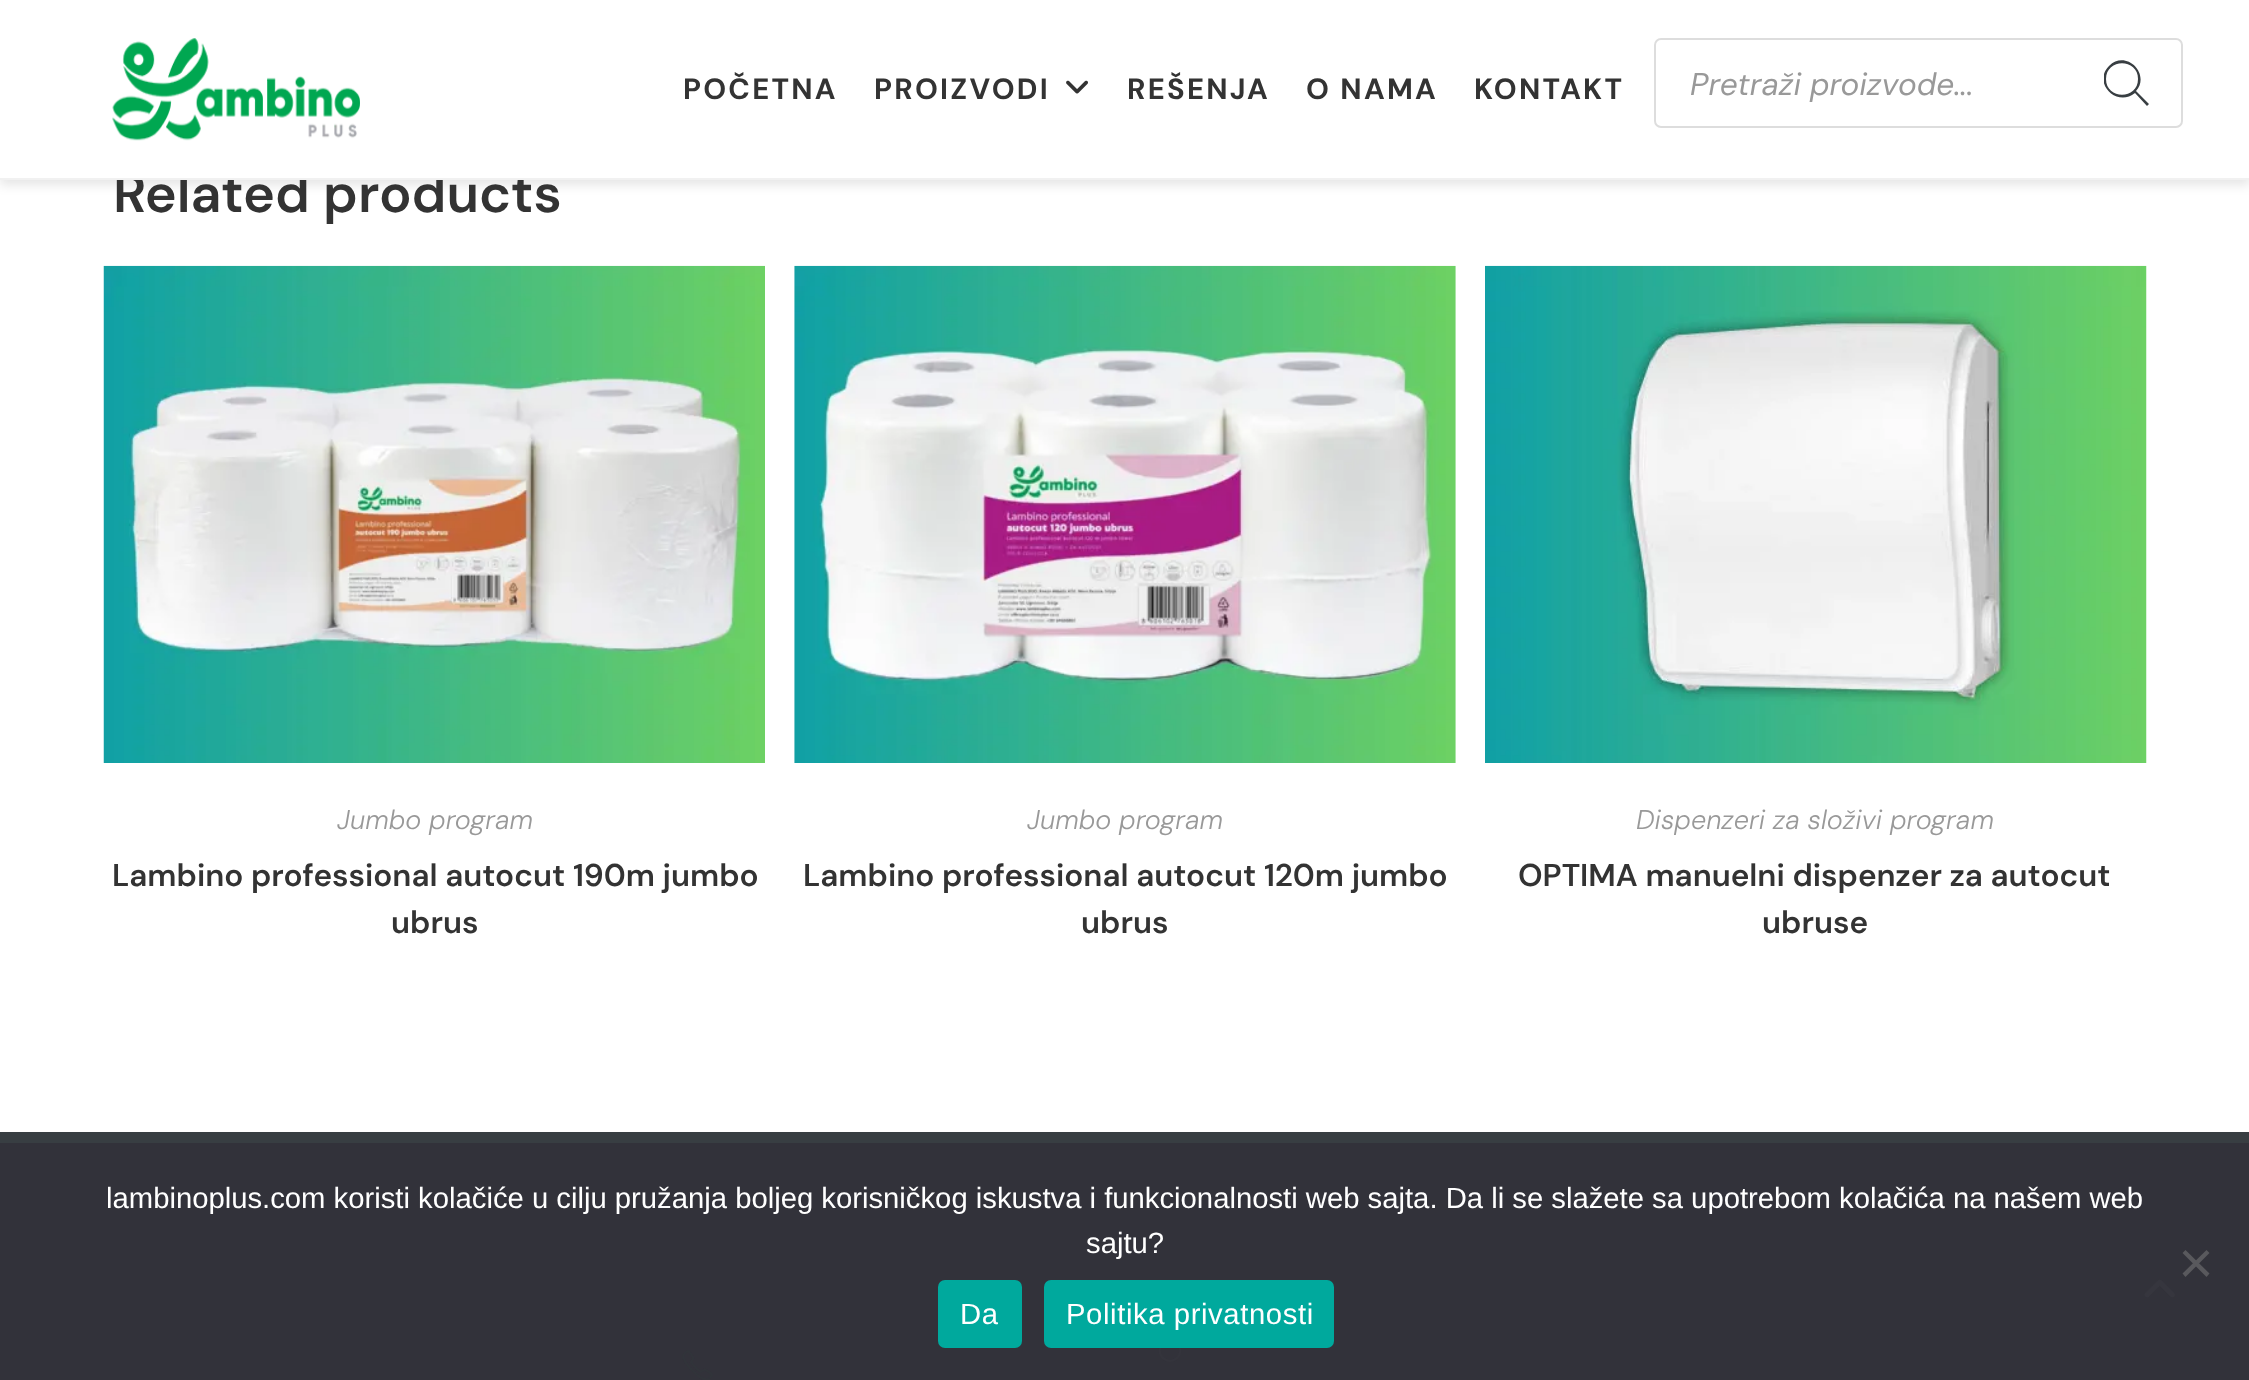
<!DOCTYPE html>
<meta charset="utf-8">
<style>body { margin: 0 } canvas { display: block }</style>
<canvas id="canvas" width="2249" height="1380"></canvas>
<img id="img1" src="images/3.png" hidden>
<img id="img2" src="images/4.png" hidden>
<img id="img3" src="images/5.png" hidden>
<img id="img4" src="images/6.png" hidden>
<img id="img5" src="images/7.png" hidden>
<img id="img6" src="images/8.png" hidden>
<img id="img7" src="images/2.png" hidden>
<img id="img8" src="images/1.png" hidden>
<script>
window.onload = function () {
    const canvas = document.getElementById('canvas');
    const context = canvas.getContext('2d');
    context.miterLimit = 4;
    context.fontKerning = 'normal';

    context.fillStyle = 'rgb(255, 255, 255)';
    context.fillRect(0, 0, 2249, 1380);
    context.fillStyle = 'rgba(0, 0, 0, 0.1)';
    context.filter = 'blur(5.5px)';
    context.beginPath();
    context.rect(0, 5, 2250, 180);
    context.fill();
    context.filter = 'none';
    context.drawImage(document.getElementById('img1'), 103, 265, 662, 498);
    context.drawImage(document.getElementById('img2'), 794, 265, 662, 498);
    context.drawImage(document.getElementById('img3'), 1485, 265, 662, 498);
    context.fillStyle = 'rgb(56, 62, 66)';
    context.fillRect(0, 1132, 2249, 11);
    context.fillStyle = 'rgb(50, 50, 58)';
    context.fillRect(0, 1143, 2249, 237);
    context.drawImage(document.getElementById('img4'), 682, 1350, 31, 30);
    context.drawImage(document.getElementById('img5'), 1158, 1348, 24, 14);
    context.fillStyle = 'rgb(89, 89, 93)';
    context.beginPath();
    context.moveTo(2206.5, 1250);
    context.lineTo(2209.5, 1253);
    context.lineTo(2185.5, 1277);
    context.lineTo(2182.5, 1273.5);
    context.closePath();
    context.fill();
    context.beginPath();
    context.moveTo(2182.5, 1253);
    context.lineTo(2185.5, 1250);
    context.lineTo(2209.5, 1273.5);
    context.lineTo(2206.5, 1277);
    context.closePath();
    context.fill();
    context.fillStyle = 'rgb(0, 169, 157)';
    context.beginPath();
    context.roundRect(938, 1280, 84, 68, 7);
    context.fill();
    context.beginPath();
    context.roundRect(1044, 1280, 290, 68, 7);
    context.fill();
    context.drawImage(document.getElementById('img6'), 2144, 1279, 31, 19);
    context.font = '600 54px DM Sans';
    context.fillStyle = 'rgb(51, 51, 51)';
    context.fillText('Related products', 113, 212);
    context.fillStyle = 'rgb(255, 255, 255)';
    context.fillRect(0, 0, 2249, 178);
    context.beginPath();
    context.roundRect(1655, 39, 527, 88, 6);
    context.strokeStyle = 'rgb(221, 221, 221)';
    context.lineWidth = 2;
    context.stroke();
    context.save();
    context.beginPath();
    context.rect(2104, 54, 45, 59);
    context.clip();
    context.fillStyle = 'rgb(56, 62, 66)';
    context.beginPath();
    context.moveTo(2149, 104);
    context.lineTo(2136, 91);
    context.bezierCurveTo(2151, 74, 2126, 49, 2109, 66);
    context.bezierCurveTo(2092, 83, 2117, 108, 2135, 93);
    context.lineTo(2147, 106);
    context.closePath();
    context.moveTo(2106, 79);
    context.bezierCurveTo(2106, 58, 2138, 58, 2138, 79);
    context.bezierCurveTo(2138, 100, 2106, 100, 2106, 79);
    context.closePath();
    context.fill();
    context.restore();
    context.font = 'italic 31.5px DM Sans';
    context.fillStyle = 'rgb(153, 153, 153)';
    context.fillText('Pretraži proizvode...', 1690, 95);
    context.letterSpacing = '2.25px';
    context.font = 'bold 29.25px DM Sans';
    context.fillStyle = 'rgb(51, 51, 51)';
    context.fillText('KONTAKT', 1474, 99);
    context.fillText('O NAMA', 1306, 99);
    context.fillText('REŠENJA', 1127, 99);
    context.drawImage(document.getElementById('img7'), 1066, 80, 22, 14);
    context.fillText('PROIZVODI', 874, 99);
    context.fillText('POČETNA', 683, 99);
    context.drawImage(document.getElementById('img8'), 112, 38, 248, 103);
    context.fillStyle = 'rgb(241, 241, 241)';
    context.fillRect(0, 178, 2249, 2);
    context.letterSpacing = '0px';
    context.font = 'italic 300 27px DM Sans';
    context.fillStyle = 'rgb(153, 153, 153)';
    context.fillText('Jumbo program', 337, 829);
    context.font = '600 31.5px DM Sans';
    context.fillStyle = 'rgb(51, 51, 51)';
    context.fillText('Lambino professional autocut 190m jumbo', 112, 886);
    context.fillText('ubrus', 391, 933);
    context.font = 'italic 300 27px DM Sans';
    context.fillStyle = 'rgb(153, 153, 153)';
    context.fillText('Jumbo program', 1027, 829);
    context.font = '600 31.5px DM Sans';
    context.fillStyle = 'rgb(51, 51, 51)';
    context.fillText('Lambino professional autocut 120m jumbo', 803, 886);
    context.fillText('ubrus', 1081, 933);
    context.font = 'italic 300 27px DM Sans';
    context.fillStyle = 'rgb(153, 153, 153)';
    context.fillText('Dispenzeri za složivi program', 1636, 829);
    context.font = '600 31.5px DM Sans';
    context.fillStyle = 'rgb(51, 51, 51)';
    context.fillText('OPTIMA manuelni dispenzer za autocut', 1518, 886);
    context.fillText('ubruse', 1762, 933);
    context.font = '29.25px Liberation Sans';
    context.fillStyle = 'rgb(255, 255, 255)';
    context.fillText('lambinoplus.com koristi kolačiće u cilju pružanja boljeg korisničkog iskustva i funkcionalnosti web sajta. Da li se slažete sa upotrebom kolačića na našem web', 106, 1208);
    context.fillText('sajtu?', 1086, 1253);
    context.letterSpacing = '0.6px';
    context.fillText('Da', 960, 1324);
    context.fillText('Politika privatnosti', 1066, 1324);
};
</script>
